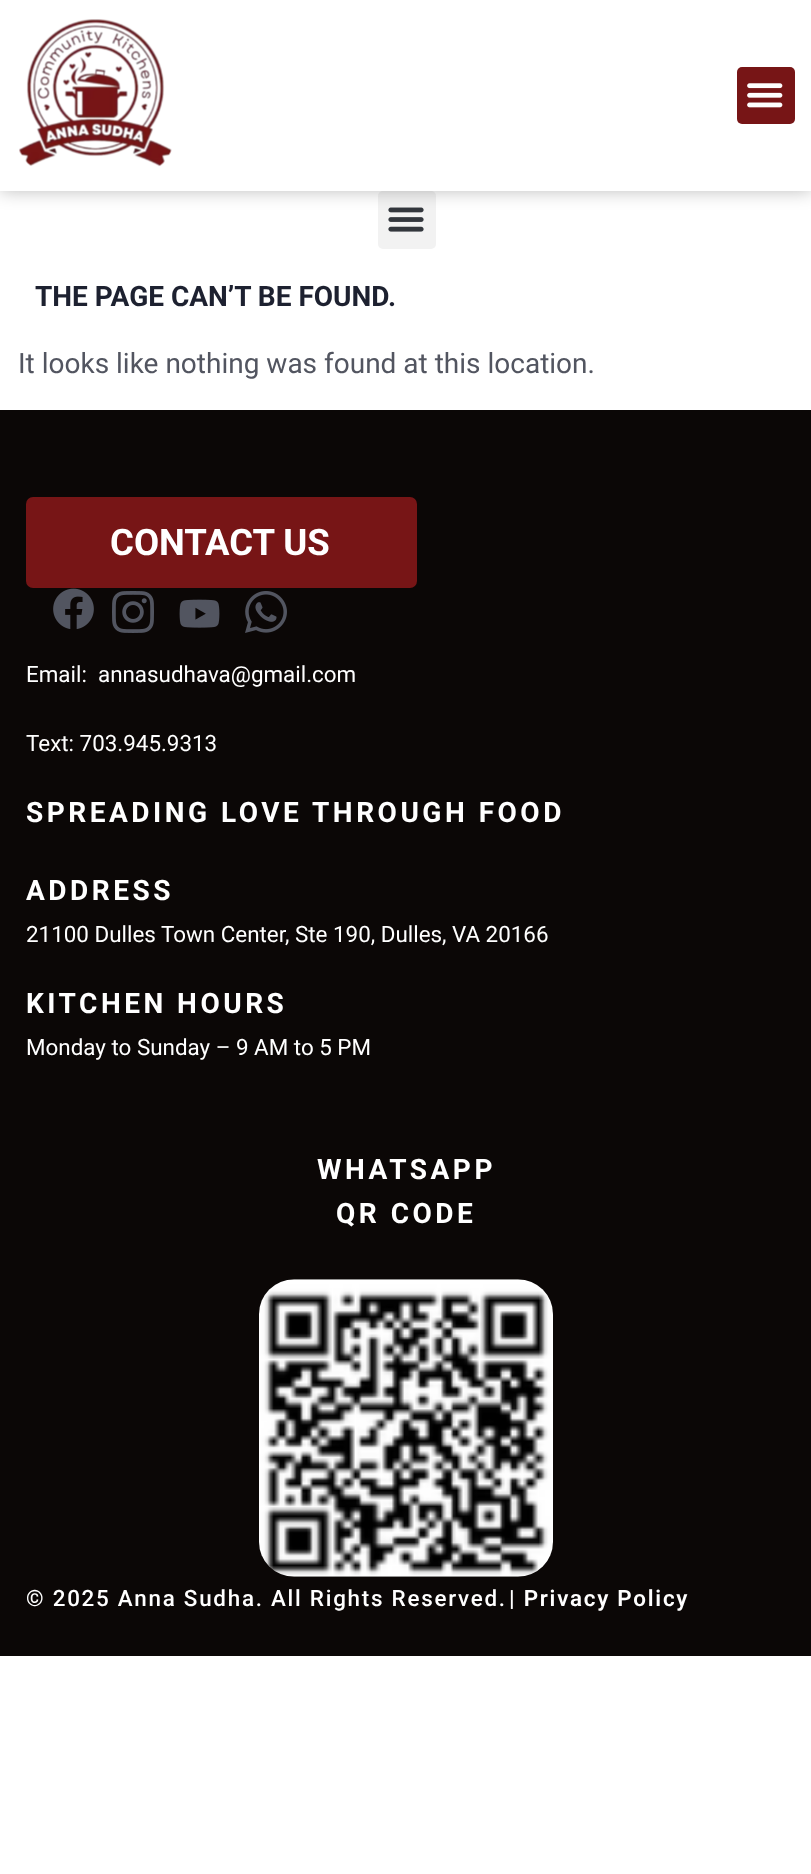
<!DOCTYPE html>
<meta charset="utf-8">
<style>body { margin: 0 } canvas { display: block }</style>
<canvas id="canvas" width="811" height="1874"></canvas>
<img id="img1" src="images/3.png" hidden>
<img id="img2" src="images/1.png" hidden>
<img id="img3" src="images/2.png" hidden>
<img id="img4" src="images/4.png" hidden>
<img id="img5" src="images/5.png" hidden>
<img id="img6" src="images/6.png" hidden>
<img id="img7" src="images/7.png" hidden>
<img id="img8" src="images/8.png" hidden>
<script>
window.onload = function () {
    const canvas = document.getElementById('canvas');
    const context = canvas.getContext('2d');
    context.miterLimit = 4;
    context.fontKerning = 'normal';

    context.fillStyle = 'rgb(255, 255, 255)';
    context.fillRect(0, 0, 811, 1874);
    context.fillStyle = 'rgb(242, 242, 242)';
    context.beginPath();
    context.roundRect(378, 191, 58, 58, 5);
    context.fill();
    context.drawImage(document.getElementById('img1'), 388, 207, 36, 25);
    context.fillStyle = 'rgba(0, 0, 0, 0.26)';
    context.filter = 'blur(9px)';
    context.beginPath();
    context.rect(0, 0, 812, 191);
    context.fill();
    context.filter = 'none';
    context.fillStyle = 'rgb(255, 255, 255)';
    context.fillRect(0, 0, 811, 191);
    context.drawImage(document.getElementById('img2'), 19, 19, 153, 148);
    context.fillStyle = 'rgb(119, 21, 22)';
    context.beginPath();
    context.roundRect(737, 67, 58, 57, 5);
    context.fill();
    context.drawImage(document.getElementById('img3'), 747, 83, 36, 25);
    context.fillStyle = 'rgb(11, 7, 6)';
    context.fillRect(0, 410, 811, 1246);
    context.fillStyle = 'rgb(119, 21, 22)';
    context.beginPath();
    context.roundRect(26, 497, 391, 91, 7);
    context.fill();
    context.drawImage(document.getElementById('img4'), 53, 588, 41, 41);
    context.drawImage(document.getElementById('img5'), 112, 591, 42, 42);
    context.drawImage(document.getElementById('img6'), 179, 599, 41, 29);
    context.drawImage(document.getElementById('img7'), 245, 591, 42, 42);
    context.drawImage(document.getElementById('img8'), 259, 1279, 294, 298);
    context.font = 'bold 28px Roboto';
    context.fillStyle = 'rgb(29, 33, 48)';
    context.fillText('THE PAGE CAN’T BE FOUND.', 35, 306);
    context.font = '28px Roboto';
    context.fillStyle = 'rgb(82, 85, 96)';
    context.fillText('It looks like nothing was found at this location.', 18, 373);
    context.font = 'bold 36.5px Roboto';
    context.fillStyle = 'rgb(255, 255, 255)';
    context.fillText('CONTACT US', 110, 555);
    context.font = '22.4px Roboto';
    context.fillText('Email:  annasudhava@gmail.com', 26, 682);
    context.fillText('Text: 703.945.9313', 26, 751);
    context.letterSpacing = '3.5px';
    context.font = 'bold 28px Roboto';
    context.fillText('SPREADING LOVE THROUGH FOOD', 26, 822);
    context.fillText('ADDRESS', 26, 900);
    context.letterSpacing = '0px';
    context.font = '22.4px Roboto';
    context.fillText('21100 Dulles Town Center, Ste 190, Dulles, VA 20166', 26, 942);
    context.letterSpacing = '3.5px';
    context.font = 'bold 28px Roboto';
    context.fillText('KITCHEN HOURS', 26, 1013);
    context.letterSpacing = '0px';
    context.font = '22.4px Roboto';
    context.fillText('Monday to Sunday – 9 AM to 5 PM', 26, 1055);
    context.letterSpacing = '3.5px';
    context.font = 'bold 28px Roboto';
    context.fillText('WHATSAPP', 317, 1179);
    context.fillText('QR CODE', 336, 1223);
    context.letterSpacing = '1.75px';
    context.font = '500 22.4px Roboto';
    context.fillText('© 2025 Anna Sudha. All Rights Reserved.', 26, 1606);
    context.font = '600 22.4px Roboto';
    context.fillText('| Privacy Policy', 509, 1606);
};
</script>
